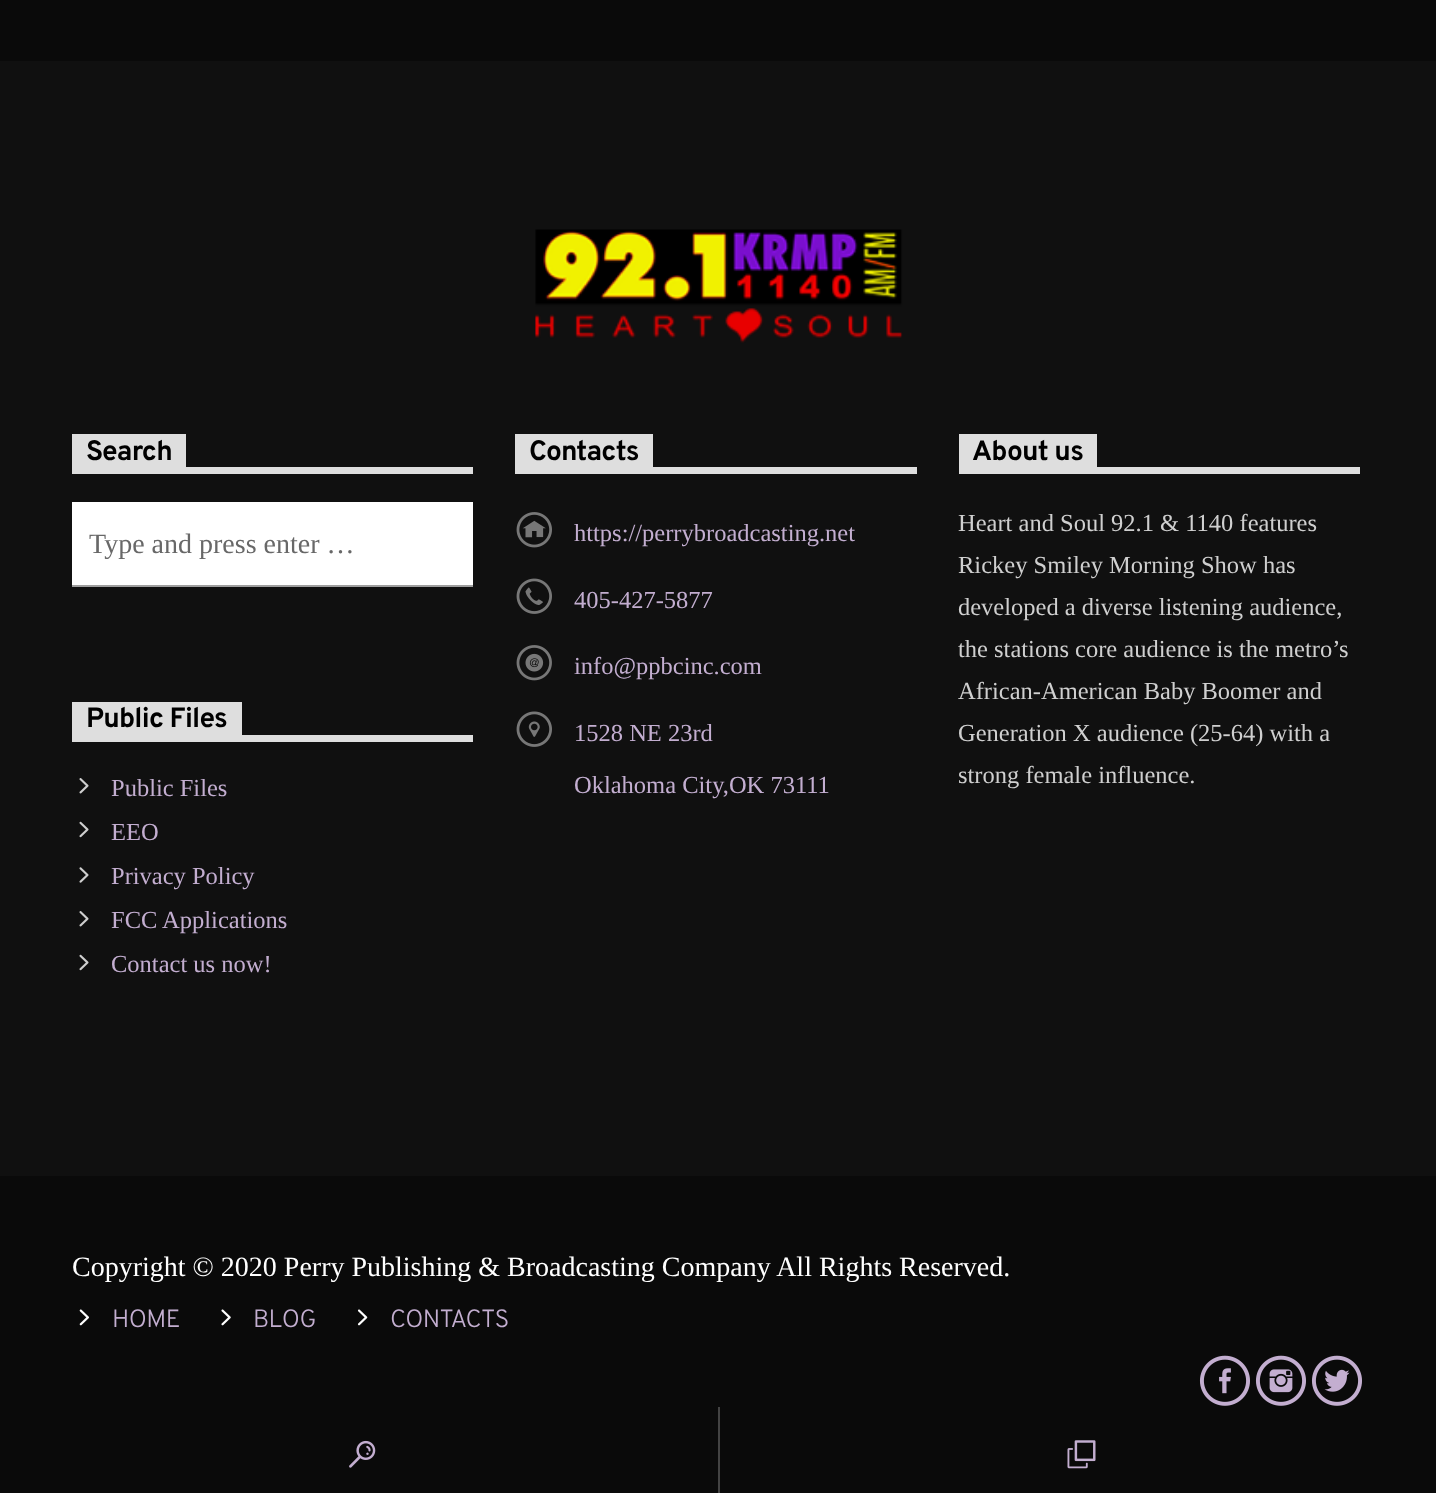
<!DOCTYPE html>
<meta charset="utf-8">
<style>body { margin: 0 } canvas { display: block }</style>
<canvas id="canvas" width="1436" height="1493"></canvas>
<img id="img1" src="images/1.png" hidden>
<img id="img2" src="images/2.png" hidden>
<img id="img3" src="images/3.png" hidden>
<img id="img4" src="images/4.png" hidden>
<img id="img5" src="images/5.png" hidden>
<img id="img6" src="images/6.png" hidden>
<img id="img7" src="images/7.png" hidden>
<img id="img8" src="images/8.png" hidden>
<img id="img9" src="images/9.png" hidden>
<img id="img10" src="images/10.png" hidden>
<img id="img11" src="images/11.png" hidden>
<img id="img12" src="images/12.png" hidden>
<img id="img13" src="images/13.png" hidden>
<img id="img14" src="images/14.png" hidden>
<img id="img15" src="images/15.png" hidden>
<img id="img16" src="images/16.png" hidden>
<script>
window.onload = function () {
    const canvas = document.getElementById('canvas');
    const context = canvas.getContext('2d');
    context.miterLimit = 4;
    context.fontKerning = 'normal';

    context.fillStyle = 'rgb(10, 10, 10)';
    context.fillRect(0, 0, 1436, 1493);
    context.fillStyle = 'rgb(16, 16, 16)';
    context.fillRect(0, 61, 1436, 1115);
    context.drawImage(document.getElementById('img1'), 535, 229, 368, 114);
    context.fillStyle = 'rgb(222, 222, 222)';
    context.fillRect(72, 467, 401, 7);
    context.fillRect(72, 434, 114, 33);
    context.fillStyle = 'rgb(255, 255, 255)';
    context.fillRect(72, 502, 401, 83);
    context.fillStyle = 'rgb(158, 158, 158)';
    context.fillRect(72, 585, 401, 2);
    context.fillStyle = 'rgb(222, 222, 222)';
    context.fillRect(515, 467, 402, 7);
    context.fillRect(515, 434, 138, 33);
    context.drawImage(document.getElementById('img2'), 516, 512, 36, 36);
    context.drawImage(document.getElementById('img3'), 516, 578, 36, 36);
    context.drawImage(document.getElementById('img4'), 516, 645, 36, 36);
    context.drawImage(document.getElementById('img5'), 516, 711, 36, 36);
    context.fillRect(959, 467, 401, 7);
    context.fillRect(959, 434, 138, 33);
    context.fillRect(72, 735, 401, 7);
    context.fillRect(72, 702, 170, 33);
    context.drawImage(document.getElementById('img6'), 79, 778, 10, 16);
    context.drawImage(document.getElementById('img7'), 79, 821, 10, 17);
    context.drawImage(document.getElementById('img8'), 79, 867, 10, 16);
    context.drawImage(document.getElementById('img6'), 79, 911, 10, 16);
    context.drawImage(document.getElementById('img7'), 79, 954, 10, 17);
    context.drawImage(document.getElementById('img9'), 79, 1309, 10, 17);
    context.drawImage(document.getElementById('img10'), 221, 1309, 10, 17);
    context.drawImage(document.getElementById('img11'), 357, 1309, 11, 17);
    context.drawImage(document.getElementById('img12'), 1199, 1355, 51, 51);
    context.drawImage(document.getElementById('img13'), 1255, 1355, 51, 51);
    context.drawImage(document.getElementById('img14'), 1311, 1355, 51, 51);
    context.fillStyle = 'rgb(67, 67, 67)';
    context.fillRect(718, 1407, 2, 86);
    context.drawImage(document.getElementById('img15'), 349, 1440, 27, 28);
    context.drawImage(document.getElementById('img16'), 1067, 1440, 29, 29);
    context.letterSpacing = '-0.75px';
    context.font = 'bold 28px Overpass';
    context.fillStyle = 'rgb(0, 0, 0)';
    context.fillText('Search', 86, 460);
    context.letterSpacing = '0px';
    context.font = '28px Liberation Serif';
    context.fillStyle = 'rgb(104, 104, 104)';
    context.fillText('Type and press enter …', 89, 553);
    context.letterSpacing = '-0.75px';
    context.font = 'bold 28px Overpass';
    context.fillStyle = 'rgb(0, 0, 0)';
    context.fillText('Contacts', 529, 460);
    context.letterSpacing = '0px';
    context.font = '24.5px Liberation Serif';
    context.fillStyle = 'rgb(195, 174, 208)';
    context.fillText('https://perrybroadcasting.net', 574, 541);
    context.fillText('405-427-5877', 574, 608);
    context.fillText('info@ppbcinc.com', 574, 674);
    context.fillText('1528 NE 23rd', 574, 741);
    context.fillText('Oklahoma City,OK 73111', 574, 793);
    context.letterSpacing = '-0.75px';
    context.font = 'bold 28px Overpass';
    context.fillStyle = 'rgb(0, 0, 0)';
    context.fillText('About us', 972, 460);
    context.letterSpacing = '0px';
    context.font = '24.5px Liberation Serif';
    context.fillStyle = 'rgb(207, 207, 207)';
    context.fillText('Heart and Soul 92.1 & 1140 features', 958, 531);
    context.fillText('Rickey Smiley Morning Show has', 958, 573);
    context.fillText('developed a diverse listening audience,', 958, 615);
    context.fillText('the stations core audience is the metro’s', 958, 657);
    context.fillText('African-American Baby Boomer and', 958, 699);
    context.fillText('Generation X audience (25-64) with a', 958, 741);
    context.fillText('strong female influence.', 958, 783);
    context.letterSpacing = '-0.75px';
    context.font = 'bold 28px Overpass';
    context.fillStyle = 'rgb(0, 0, 0)';
    context.fillText('Public Files', 86, 727);
    context.letterSpacing = '0px';
    context.font = '24.5px Liberation Serif';
    context.fillStyle = 'rgb(195, 174, 208)';
    context.fillText('Public Files', 111, 796);
    context.fillText('EEO', 111, 840);
    context.fillText('Privacy Policy', 111, 884);
    context.fillText('FCC Applications', 111, 928);
    context.fillText('Contact us now!', 111, 972);
    context.font = '28px Liberation Serif';
    context.fillStyle = 'rgb(255, 255, 255)';
    context.fillText('Copyright © 2020 Perry Publishing & Broadcasting Company All Rights Reserved.', 72, 1276);
    context.letterSpacing = '-0.5px';
    context.font = '300 25px Overpass';
    context.fillStyle = 'rgb(195, 174, 208)';
    context.fillText('HOME', 112, 1327);
    context.fillText('BLOG', 253, 1327);
    context.fillText('CONTACTS', 390, 1327);
};
</script>
